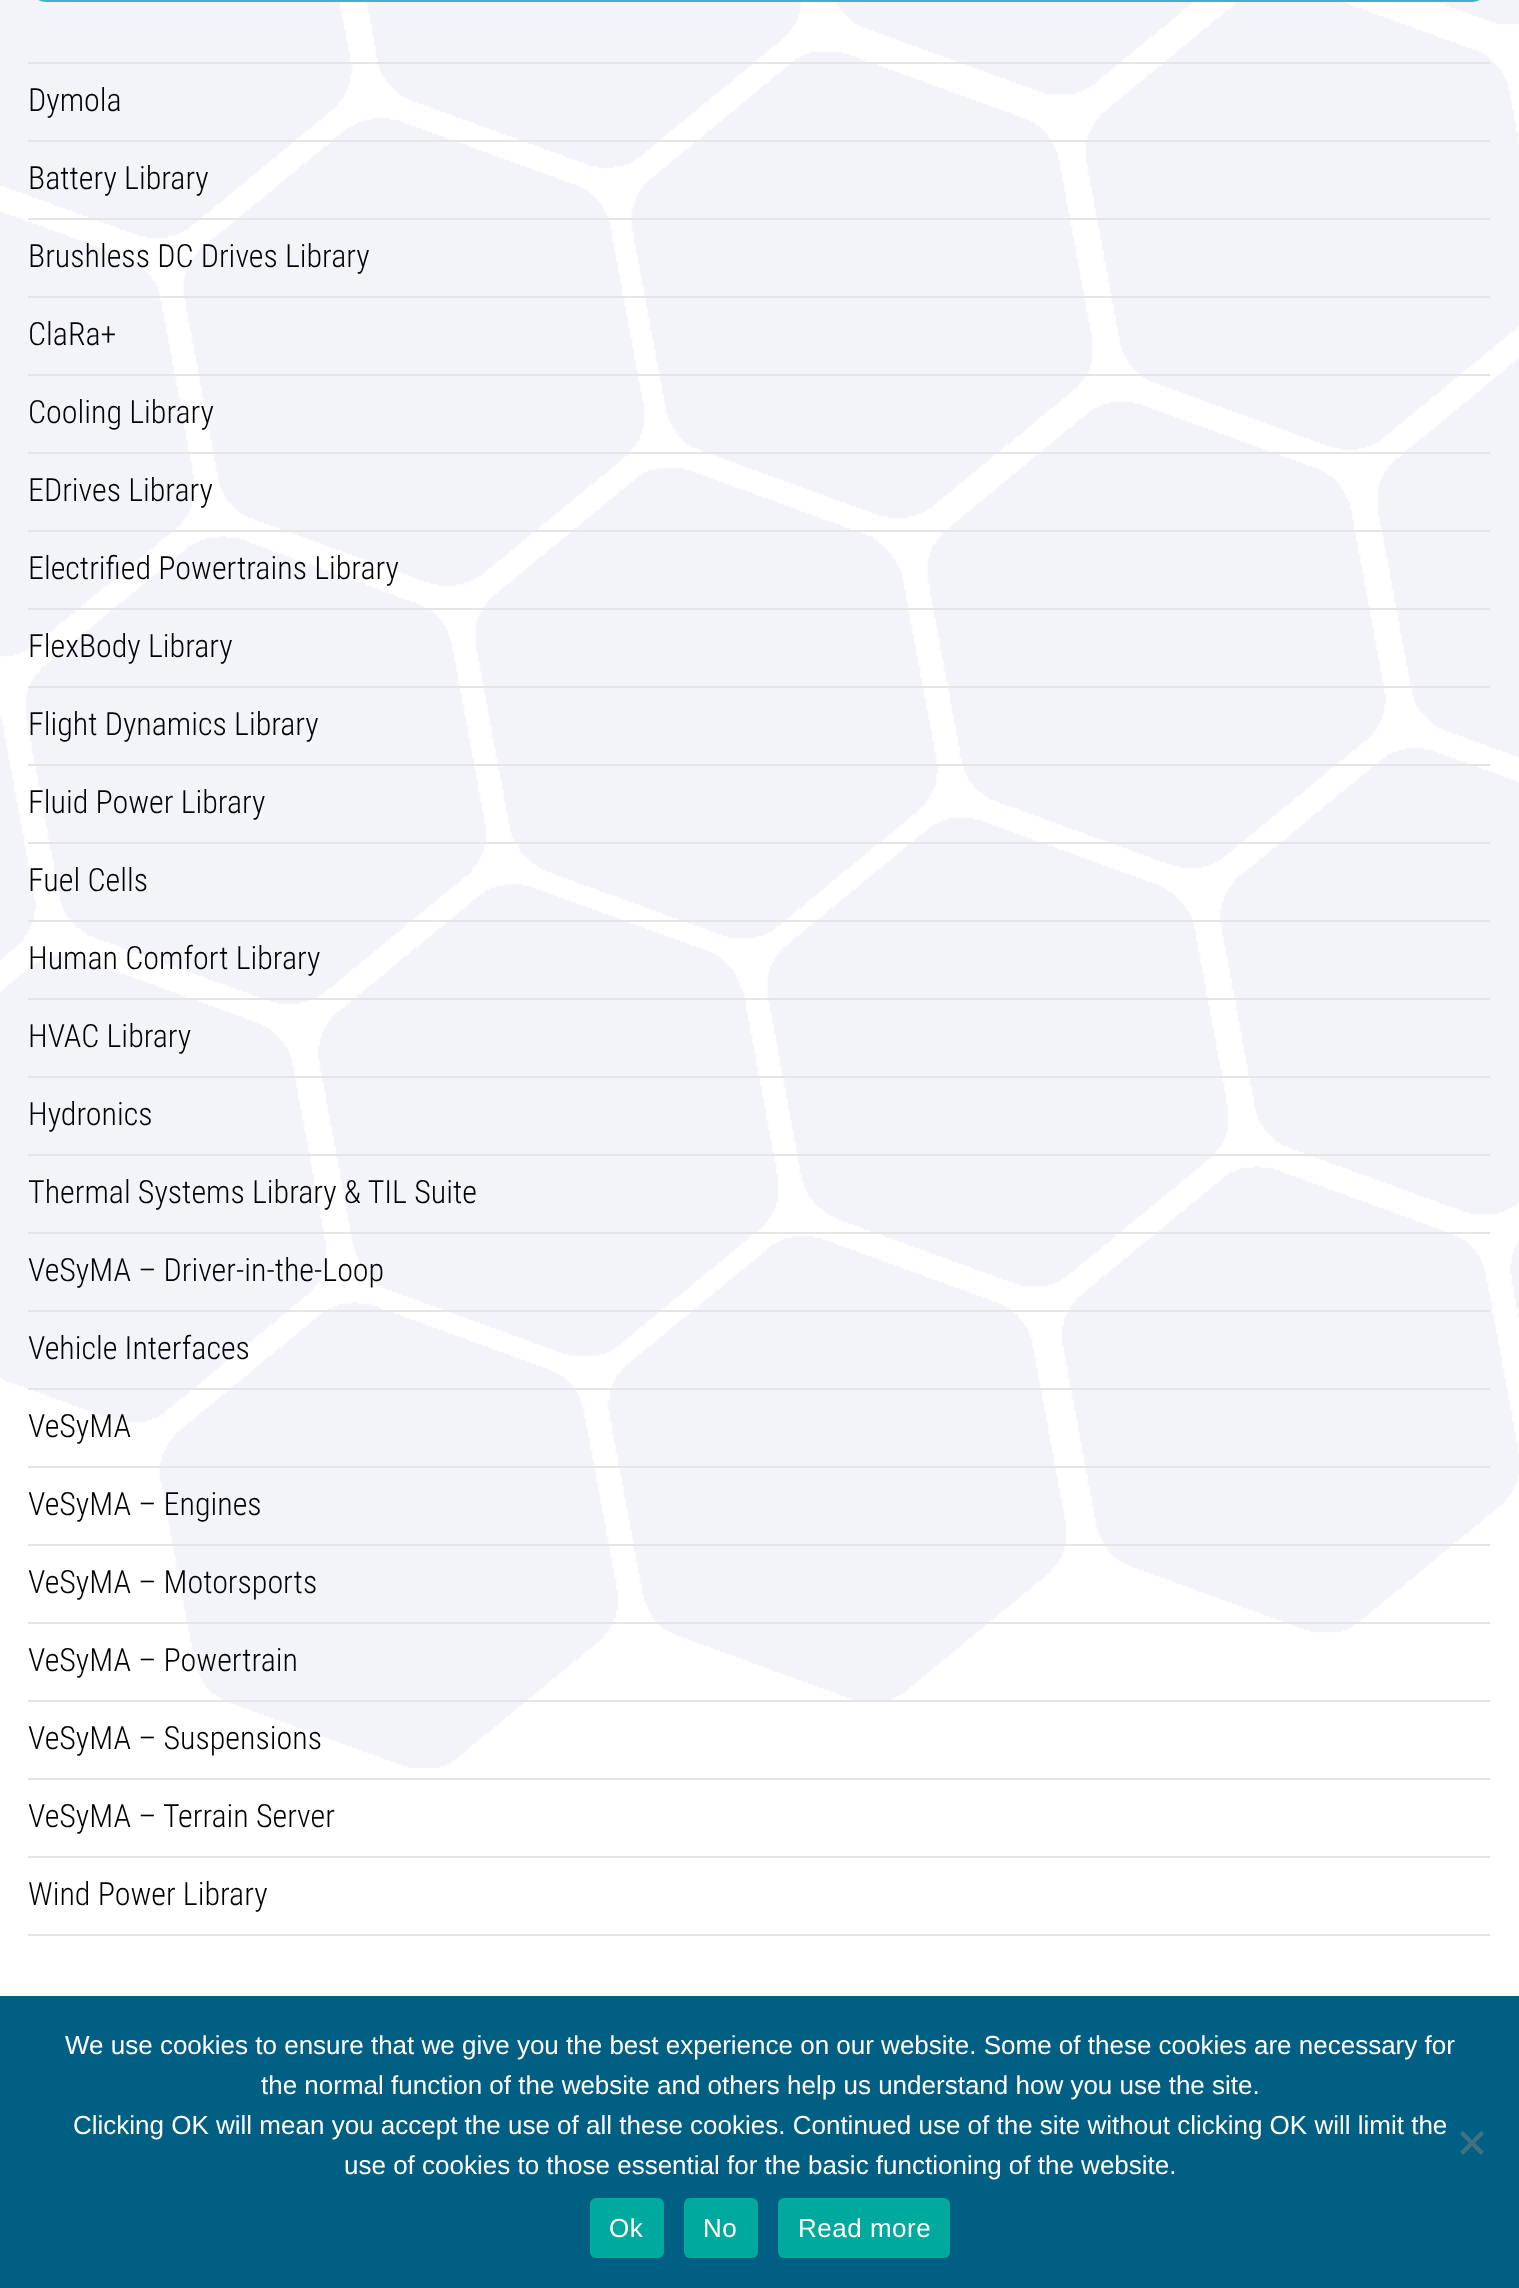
<!DOCTYPE html>
<meta charset="utf-8">
<style>body { margin: 0 } canvas { display: block }</style>
<canvas id="canvas" width="1519" height="2288"></canvas>
<img id="img1" src="images/1.png" hidden>
<script>
window.onload = function () {
    const canvas = document.getElementById('canvas');
    const context = canvas.getContext('2d');
    context.miterLimit = 4;
    context.fontKerning = 'normal';

    context.fillStyle = 'rgb(255, 255, 255)';
    context.fillRect(0, 0, 1519, 2288);
    context.drawImage(document.getElementById('img1'), 0, 0, 1519, 1768);
    context.beginPath();
    context.roundRect(29, -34, 1460, 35, 32);
    context.strokeStyle = 'rgb(62, 177, 200)';
    context.lineWidth = 2;
    context.stroke();
    context.fillStyle = 'rgb(229, 229, 229)';
    context.fillRect(28, 62, 1462, 2);
    context.fillRect(28, 140, 1462, 2);
    context.fillRect(28, 218, 1462, 2);
    context.fillRect(28, 296, 1462, 2);
    context.fillRect(28, 374, 1462, 2);
    context.fillRect(28, 452, 1462, 2);
    context.fillRect(28, 530, 1462, 2);
    context.fillRect(28, 608, 1462, 2);
    context.fillRect(28, 686, 1462, 2);
    context.fillRect(28, 764, 1462, 2);
    context.fillRect(28, 842, 1462, 2);
    context.fillRect(28, 920, 1462, 2);
    context.fillRect(28, 998, 1462, 2);
    context.fillRect(28, 1076, 1462, 2);
    context.fillRect(28, 1154, 1462, 2);
    context.fillRect(28, 1232, 1462, 2);
    context.fillRect(28, 1310, 1462, 2);
    context.fillRect(28, 1388, 1462, 2);
    context.fillRect(28, 1466, 1462, 2);
    context.fillRect(28, 1544, 1462, 2);
    context.fillRect(28, 1622, 1462, 2);
    context.fillRect(28, 1700, 1462, 2);
    context.fillRect(28, 1778, 1462, 2);
    context.fillRect(28, 1856, 1462, 2);
    context.fillRect(28, 1934, 1462, 2);
    context.fillStyle = 'rgb(0, 95, 131)';
    context.fillRect(0, 1996, 1519, 292);
    context.fillStyle = 'rgb(64, 112, 130)';
    context.beginPath();
    context.moveTo(1481, 2131);
    context.lineTo(1484, 2134);
    context.lineTo(1463, 2155);
    context.lineTo(1460, 2152);
    context.closePath();
    context.fill();
    context.beginPath();
    context.moveTo(1460, 2134);
    context.lineTo(1463, 2131);
    context.lineTo(1484, 2152);
    context.lineTo(1481, 2155);
    context.closePath();
    context.fill();
    context.fillStyle = 'rgb(0, 169, 157)';
    context.beginPath();
    context.roundRect(590, 2198, 74, 60, 6);
    context.fill();
    context.beginPath();
    context.roundRect(684, 2198, 74, 60, 6);
    context.fill();
    context.beginPath();
    context.roundRect(778, 2198, 172, 60, 6);
    context.fill();
    context.font = '300 32px Roboto Condensed';
    context.fillStyle = 'rgb(0, 0, 0)';
    context.fillText('Dymola', 28, 111);
    context.fillText('Battery Library', 28, 189);
    context.fillText('Brushless DC Drives Library', 28, 267);
    context.fillText('ClaRa+', 28, 345);
    context.fillText('Cooling Library', 28, 423);
    context.fillText('EDrives Library', 28, 501);
    context.fillText('Electrified Powertrains Library', 28, 579);
    context.fillText('FlexBody Library', 28, 657);
    context.fillText('Flight Dynamics Library', 28, 735);
    context.fillText('Fluid Power Library', 28, 813);
    context.fillText('Fuel Cells', 28, 891);
    context.fillText('Human Comfort Library', 28, 969);
    context.fillText('HVAC Library', 28, 1047);
    context.fillText('Hydronics', 28, 1125);
    context.fillText('Thermal Systems Library & TIL Suite', 28, 1203);
    context.fillText('VeSyMA – Driver-in-the-Loop', 28, 1281);
    context.fillText('Vehicle Interfaces', 28, 1359);
    context.fillText('VeSyMA', 28, 1437);
    context.fillText('VeSyMA – Engines', 28, 1515);
    context.fillText('VeSyMA – Motorsports', 28, 1593);
    context.fillText('VeSyMA – Powertrain', 28, 1671);
    context.fillText('VeSyMA – Suspensions', 28, 1749);
    context.fillText('VeSyMA – Terrain Server', 28, 1827);
    context.fillText('Wind Power Library', 28, 1905);
    context.font = '26px Liberation Sans';
    context.fillStyle = 'rgb(255, 255, 255)';
    context.fillText('We use cookies to ensure that we give you the best experience on our website. Some of these cookies are necessary for', 65, 2054);
    context.fillText('the normal function of the website and others help us understand how you use the site.', 261, 2094);
    context.fillText('Clicking OK will mean you accept the use of all these cookies. Continued use of the site without clicking OK will limit the', 73, 2134);
    context.fillText('use of cookies to those essential for the basic functioning of the website.', 344, 2174);
    context.letterSpacing = '0.5px';
    context.fillText('Ok', 609, 2237);
    context.fillText('No', 703, 2237);
    context.fillText('Read more', 798, 2237);
};
</script>
